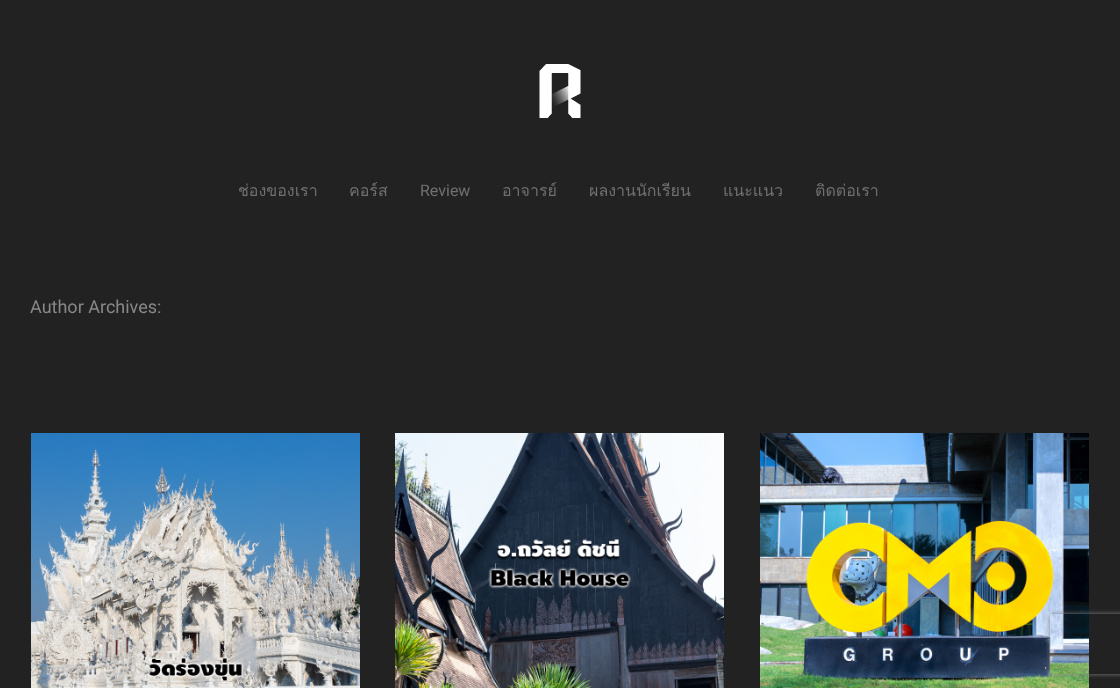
<!DOCTYPE html>
<meta charset="utf-8">
<style>body { margin: 0 } canvas { display: block }</style>
<canvas id="canvas" width="1120" height="688"></canvas>
<img id="img1" src="images/1.png" hidden>
<img id="img2" src="images/2.png" hidden>
<img id="img3" src="images/3.png" hidden>
<img id="img4" src="images/4.png" hidden>
<script>
window.onload = function () {
    const canvas = document.getElementById('canvas');
    const context = canvas.getContext('2d');
    context.miterLimit = 4;
    context.fontKerning = 'normal';

    context.fillStyle = 'rgb(34, 34, 34)';
    context.fillRect(0, 0, 1120, 688);
    context.drawImage(document.getElementById('img1'), 539, 64, 42, 54);
    context.drawImage(document.getElementById('img2'), 31, 433, 329, 255);
    context.drawImage(document.getElementById('img3'), 395, 433, 329, 255);
    context.drawImage(document.getElementById('img4'), 760, 433, 329, 255);
    context.save();
    context.beginPath();
    context.moveTo(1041, 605);
    context.lineTo(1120, 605);
    context.lineTo(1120, 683);
    context.lineTo(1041, 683);
    context.closePath();
    context.moveTo(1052, 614);
    context.lineTo(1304, 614);
    context.bezierCurveTo(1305, 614, 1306, 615, 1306, 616);
    context.lineTo(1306, 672);
    context.bezierCurveTo(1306, 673, 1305, 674, 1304, 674);
    context.lineTo(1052, 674);
    context.bezierCurveTo(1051, 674, 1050, 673, 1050, 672);
    context.lineTo(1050, 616);
    context.bezierCurveTo(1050, 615, 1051, 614, 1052, 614);
    context.closePath();
    context.clip('evenodd');
    context.fillStyle = 'rgb(128, 128, 128)';
    context.filter = 'blur(2.5px)';
    context.beginPath();
    context.roundRect(1050, 614, 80, 60, 2);
    context.fill();
    context.filter = 'none';
    context.restore();
    context.font = '16px Loma';
    context.fillStyle = 'rgb(112, 112, 112)';
    context.fillText('ช่องของเรา', 238, 196);
    context.fillText('คอร์ส', 349, 196);
    context.font = '16px Roboto';
    context.fillText('Review', 420, 196);
    context.font = '16px Loma';
    context.fillText('อาจารย์', 502, 196);
    context.fillText('ผลงานนักเรียน', 589, 196);
    context.fillText('แนะแนว', 723, 196);
    context.fillText('ติดต่อเรา', 815, 196);
    context.font = '18px Roboto';
    context.fillStyle = 'rgb(136, 136, 136)';
    context.fillText('Author Archives:', 30, 313);
};
</script>
